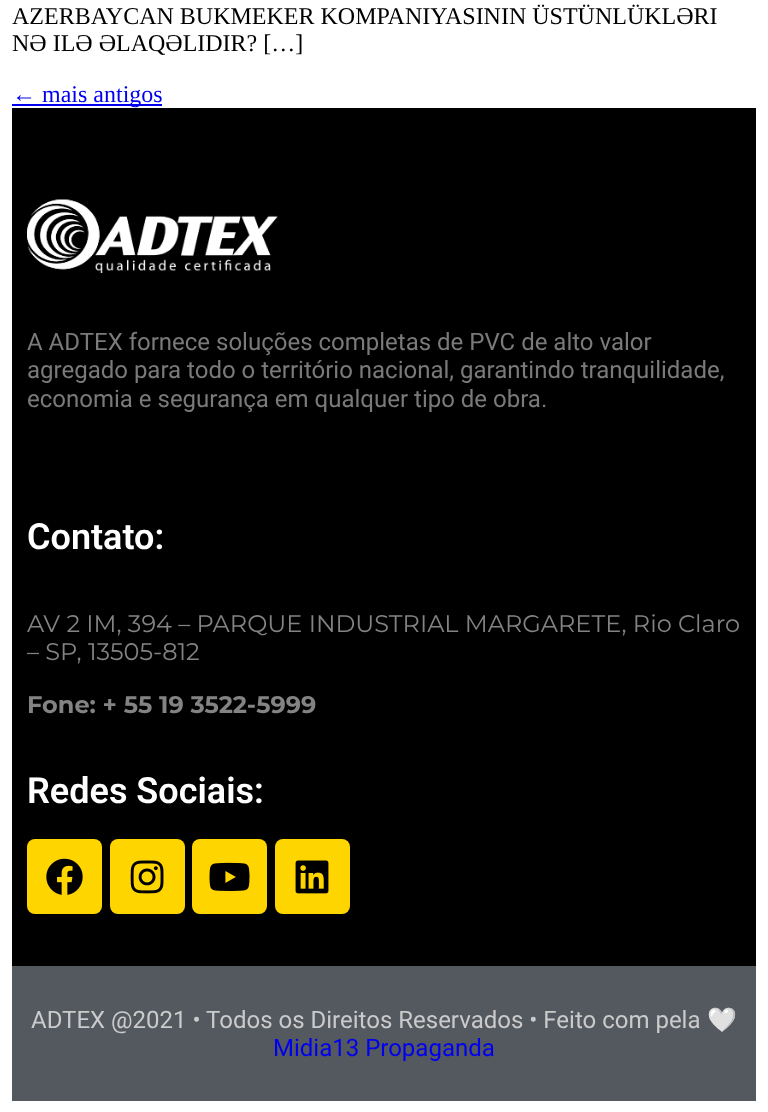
<!DOCTYPE html>
<meta charset="utf-8">
<style>body { margin: 0 } canvas { display: block }</style>
<canvas id="canvas" width="768" height="1112"></canvas>
<img id="img1" src="images/1.png" hidden>
<img id="img2" src="images/2.png" hidden>
<img id="img3" src="images/3.png" hidden>
<img id="img4" src="images/4.png" hidden>
<img id="img5" src="images/5.png" hidden>
<script>
window.onload = function () {
    const canvas = document.getElementById('canvas');
    const context = canvas.getContext('2d');
    context.miterLimit = 4;
    context.fontKerning = 'normal';

    context.fillStyle = 'rgb(255, 255, 255)';
    context.fillRect(0, 0, 768, 1112);
    context.fillStyle = 'rgb(0, 0, 238)';
    context.fillRect(12, 104, 150, 2);
    context.fillStyle = 'rgb(0, 0, 0)';
    context.fillRect(12, 108, 744, 858);
    context.drawImage(document.getElementById('img1'), 27, 199, 251, 74);
    context.fillStyle = 'rgb(255, 213, 0)';
    context.beginPath();
    context.roundRect(27, 839, 75, 75, 8);
    context.fill();
    context.drawImage(document.getElementById('img2'), 46, 858, 37, 37);
    context.beginPath();
    context.roundRect(110, 839, 75, 75, 8);
    context.fill();
    context.drawImage(document.getElementById('img3'), 130, 860, 34, 34);
    context.beginPath();
    context.roundRect(192, 839, 75, 75, 8);
    context.fill();
    context.drawImage(document.getElementById('img4'), 209, 862, 41, 29);
    context.beginPath();
    context.roundRect(275, 839, 75, 75, 8);
    context.fill();
    context.drawImage(document.getElementById('img5'), 295, 860, 34, 34);
    context.fillStyle = 'rgb(84, 89, 95)';
    context.fillRect(12, 966, 744, 135);
    context.font = '24px Liberation Serif';
    context.fillStyle = 'rgb(0, 0, 0)';
    context.fillText('AZERBAYCAN BUKMEKER KOMPANIYASININ ÜSTÜNLÜKLƏRI', 12, 24);
    context.fillText('NƏ ILƏ ƏLAQƏLIDIR? […]', 12, 51);
    context.fillStyle = 'rgb(0, 0, 238)';
    context.fillText('← mais antigos', 12, 102);
    context.font = '24px Roboto';
    context.fillStyle = 'rgb(122, 122, 122)';
    context.fillText('A ADTEX fornece soluções completas de PVC de alto valor', 27, 350);
    context.fillText('agregado para todo o território nacional, garantindo tranquilidade,', 27, 378);
    context.fillText('economia e segurança em qualquer tipo de obra.', 27, 407);
    context.font = '600 36px Roboto';
    context.fillStyle = 'rgb(255, 255, 255)';
    context.fillText('Contato:', 27, 549);
    context.font = '24px Montserrat';
    context.fillStyle = 'rgb(132, 131, 131)';
    context.fillText('AV 2 IM, 394 – PARQUE INDUSTRIAL MARGARETE, Rio Claro', 27, 632);
    context.fillText('– SP, 13505-812', 27, 660);
    context.font = 'bold 24px Montserrat';
    context.fillText('Fone: + 55 19 3522-5999', 27, 713);
    context.font = '600 36px Roboto';
    context.fillStyle = 'rgb(255, 255, 255)';
    context.fillText('Redes Sociais:', 27, 803);
    context.font = '24px Roboto';
    context.fillStyle = 'rgb(203, 203, 203)';
    context.fillText('ADTEX @2021 • Todos os Direitos Reservados • Feito com pela', 31, 1028);
    context.font = '24px Noto Color Emoji';
    context.fillText('🤍', 707, 1028);
    context.font = '24px Roboto';
    context.fillStyle = 'rgb(0, 0, 238)';
    context.fillText('Midia13 Propaganda', 273, 1056);
};
</script>
